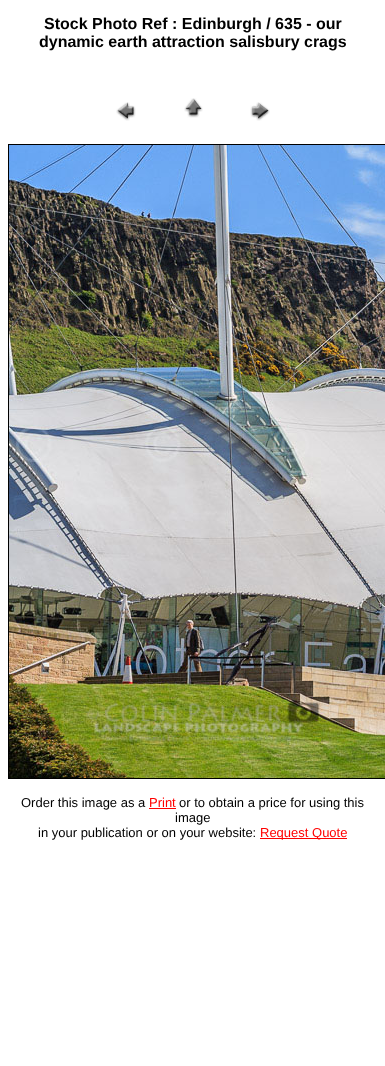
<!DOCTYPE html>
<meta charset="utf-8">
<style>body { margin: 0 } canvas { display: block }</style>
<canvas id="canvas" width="385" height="1066"></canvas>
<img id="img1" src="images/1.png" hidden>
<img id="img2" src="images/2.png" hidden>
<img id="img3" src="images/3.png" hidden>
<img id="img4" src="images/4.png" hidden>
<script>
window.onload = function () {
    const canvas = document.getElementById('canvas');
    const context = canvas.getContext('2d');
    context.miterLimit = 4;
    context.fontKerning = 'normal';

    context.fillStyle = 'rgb(255, 255, 255)';
    context.fillRect(0, 0, 385, 1066);
    context.drawImage(document.getElementById('img1'), 116, 102, 20, 19);
    context.drawImage(document.getElementById('img2'), 184, 98, 19, 20);
    context.drawImage(document.getElementById('img3'), 250, 102, 20, 19);
    context.strokeStyle = 'rgb(0, 0, 0)';
    context.strokeRect(8.5, 144.5, 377, 634);
    context.drawImage(document.getElementById('img4'), 9, 145, 376, 633);
    context.fillStyle = 'rgb(255, 0, 0)';
    context.fillRect(149, 808, 27, 1);
    context.fillRect(260, 838, 87, 1);
    context.font = 'bold 16px Liberation Sans';
    context.fillStyle = 'rgb(0, 0, 0)';
    context.fillText('Stock Photo Ref : Edinburgh / 635 - our', 44, 29);
    context.fillText('dynamic earth attraction salisbury crags', 39, 47);
    context.font = '13px Liberation Sans';
    context.fillText('Order this image as a', 21, 807);
    context.fillStyle = 'rgb(255, 0, 0)';
    context.fillText('Print', 149, 807);
    context.fillStyle = 'rgb(0, 0, 0)';
    context.fillText('or to obtain a price for using this', 179, 807);
    context.fillText('image', 175, 822);
    context.fillText('in your publication or on your website:', 38, 837);
    context.fillStyle = 'rgb(255, 0, 0)';
    context.fillText('Request Quote', 260, 837);
};
</script>
